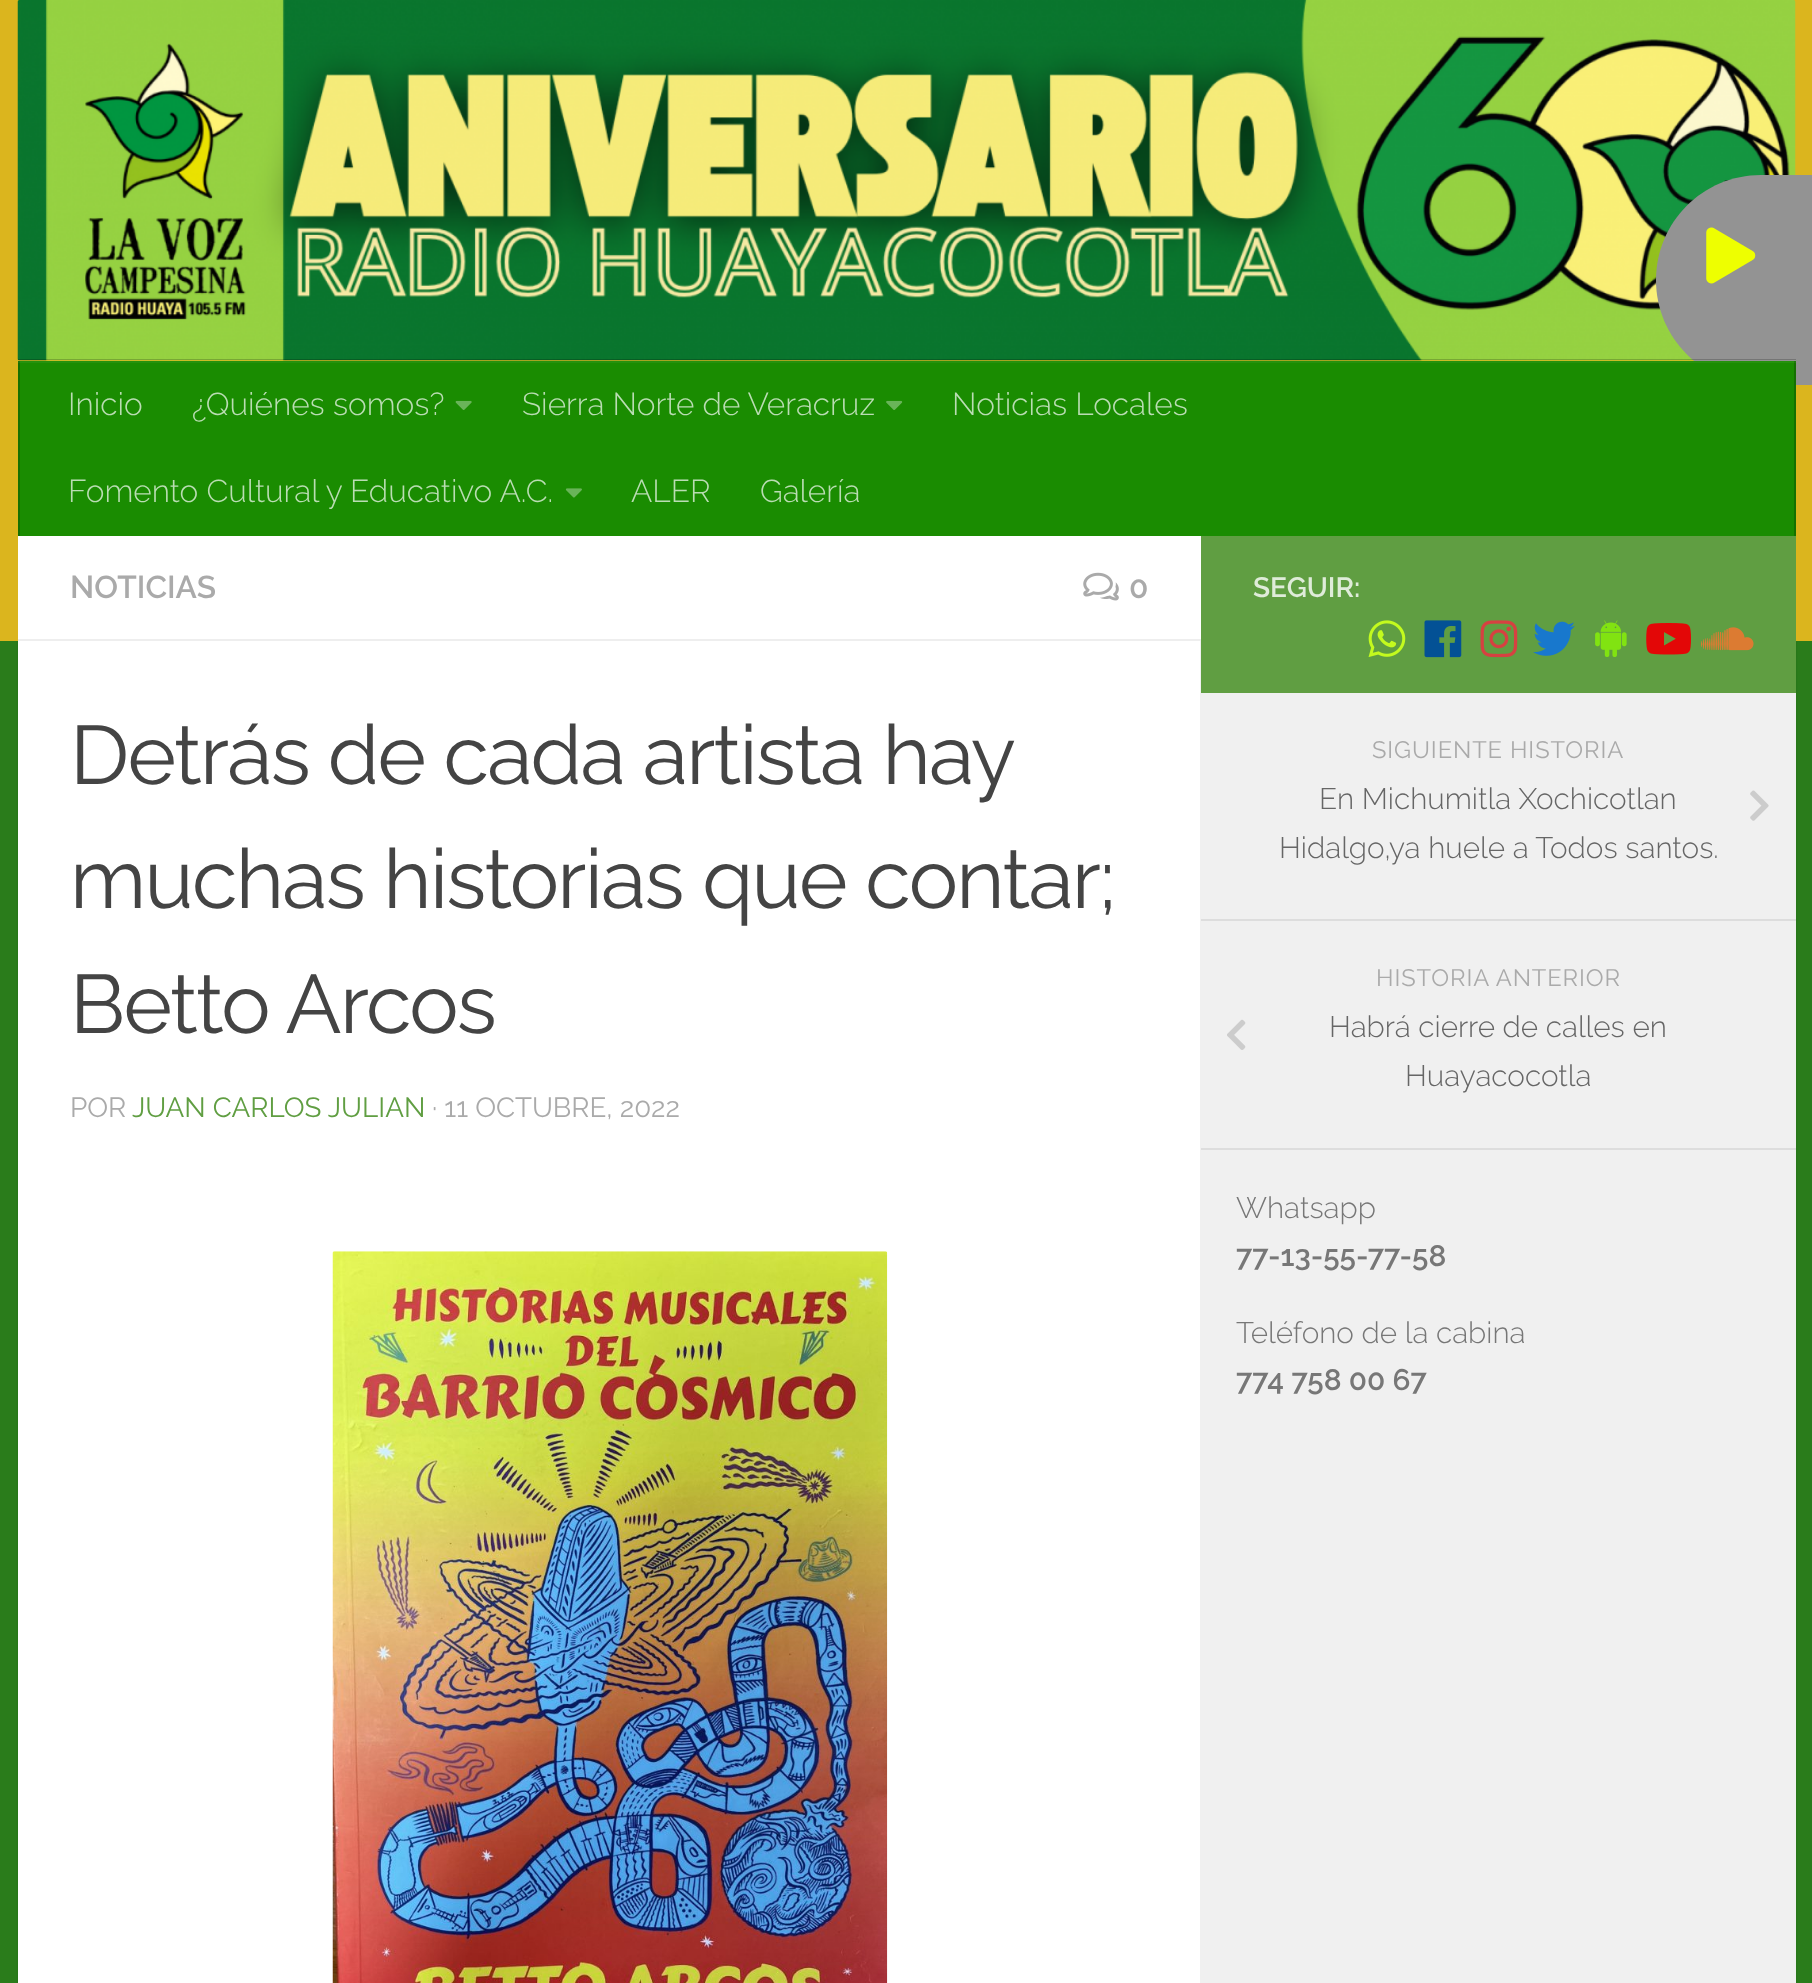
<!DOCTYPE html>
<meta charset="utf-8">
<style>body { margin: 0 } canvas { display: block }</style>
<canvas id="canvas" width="1812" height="1983"></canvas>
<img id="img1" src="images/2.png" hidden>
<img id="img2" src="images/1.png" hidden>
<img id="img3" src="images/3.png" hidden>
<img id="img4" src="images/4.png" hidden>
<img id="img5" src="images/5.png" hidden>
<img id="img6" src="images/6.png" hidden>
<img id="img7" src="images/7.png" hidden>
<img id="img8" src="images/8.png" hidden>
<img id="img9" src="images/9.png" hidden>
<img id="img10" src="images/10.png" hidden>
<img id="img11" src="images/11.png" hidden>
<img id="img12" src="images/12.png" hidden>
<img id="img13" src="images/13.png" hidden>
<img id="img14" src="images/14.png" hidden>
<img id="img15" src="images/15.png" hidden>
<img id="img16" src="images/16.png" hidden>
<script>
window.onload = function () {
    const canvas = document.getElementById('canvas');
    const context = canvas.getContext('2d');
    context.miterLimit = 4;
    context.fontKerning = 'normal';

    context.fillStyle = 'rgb(42, 124, 27)';
    context.fillRect(0, 0, 1812, 1983);
    context.fillStyle = 'rgba(0, 0, 0, 0.1)';
    context.filter = 'blur(1px)';
    context.beginPath();
    context.rect(18, 537, 1778, 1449);
    context.fill();
    context.filter = 'none';
    context.fillStyle = 'rgb(219, 181, 30)';
    context.fillRect(0, 0, 1812, 641);
    context.drawImage(document.getElementById('img1'), 17, 0, 1779, 361);
    context.fillStyle = 'rgb(147, 147, 147)';
    context.beginPath();
    context.moveTo(1761, 175);
    context.lineTo(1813, 175);
    context.lineTo(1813, 385);
    context.lineTo(1761, 385);
    context.bezierCurveTo(1703, 385, 1656, 338, 1656, 280);
    context.bezierCurveTo(1656, 222, 1703, 175, 1761, 175);
    context.closePath();
    context.fill();
    context.drawImage(document.getElementById('img2'), 1706, 227, 50, 57);
    context.fillStyle = 'rgba(0, 0, 0, 0.2)';
    context.beginPath();
    context.moveTo(18, 359);
    context.lineTo(18, 360);
    context.lineTo(1796, 360);
    context.lineTo(1796, 534);
    context.lineTo(1796, 359);
    context.closePath();
    context.fill();
    context.fillStyle = 'rgb(26, 140, 1)';
    context.fillRect(20, 361, 1774, 175);
    context.fillStyle = 'rgb(21, 112, 1)';
    context.fillRect(1794, 361, 2, 175);
    context.fillRect(18, 361, 2, 175);
    context.fillStyle = 'rgba(255, 255, 255, 0.05)';
    context.fillRect(18, 361, 1778, 2);
    context.drawImage(document.getElementById('img3'), 455, 400, 17, 10);
    context.drawImage(document.getElementById('img4'), 886, 400, 17, 10);
    context.drawImage(document.getElementById('img5'), 565, 488, 17, 10);
    context.fillStyle = 'rgb(255, 255, 255)';
    context.fillRect(18, 641, 1182, 1342);
    context.fillStyle = 'rgb(240, 240, 240)';
    context.fillRect(1200, 641, 596, 1342);
    context.fillStyle = 'rgb(255, 255, 255)';
    context.fillRect(18, 536, 1183, 103);
    context.fillStyle = 'rgb(238, 238, 238)';
    context.fillRect(18, 639, 1183, 2);
    context.drawImage(document.getElementById('img6'), 1083, 572, 36, 29);
    context.drawImage(document.getElementById('img7'), 332, 1251, 556, 732);
    context.fillStyle = 'rgb(96, 158, 66)';
    context.fillRect(1201, 536, 595, 157);
    context.drawImage(document.getElementById('img8'), 1368, 620, 38, 37);
    context.drawImage(document.getElementById('img9'), 1424, 620, 38, 38);
    context.drawImage(document.getElementById('img10'), 1480, 620, 38, 38);
    context.drawImage(document.getElementById('img11'), 1533, 621, 42, 35);
    context.drawImage(document.getElementById('img12'), 1595, 620, 32, 37);
    context.drawImage(document.getElementById('img13'), 1646, 623, 45, 32);
    context.drawImage(document.getElementById('img14'), 1701, 627, 53, 24);
    context.fillStyle = 'rgb(221, 221, 221)';
    context.fillRect(1201, 919, 595, 2);
    context.drawImage(document.getElementById('img15'), 1750, 790, 19, 31);
    context.fillRect(1201, 1148, 595, 2);
    context.drawImage(document.getElementById('img16'), 1227, 1019, 19, 31);
    context.font = '300 31.6px Raleway';
    context.fillStyle = 'rgb(186, 221, 179)';
    context.fillText('Inicio', 68, 415);
    context.fillText('¿Quiénes somos?', 192, 415);
    context.fillText('Sierra Norte de Veracruz', 522, 415);
    context.fillText('Noticias Locales', 952, 415);
    context.fillText('Fomento Cultural y Educativo A.C.', 68, 502);
    context.fillText('ALER', 631, 502);
    context.fillText('Galería', 760, 502);
    context.font = '600 31.6px Raleway';
    context.fillStyle = 'rgb(170, 170, 170)';
    context.fillText('NOTICIAS', 70, 598);
    context.fillText('0', 1129, 598);
    context.letterSpacing = '-1.75px';
    context.wordSpacing = '-0.5px';
    context.font = '82.9px Raleway';
    context.fillStyle = 'rgb(68, 68, 68)';
    context.fillText('Detrás de cada artista hay', 70, 784);
    context.wordSpacing = '0px';
    context.fillText('muchas historias que contar;', 70, 908);
    context.fillText('Betto Arcos', 70, 1033);
    context.letterSpacing = '0px';
    context.font = '27.75px Raleway';
    context.fillStyle = 'rgb(170, 170, 170)';
    context.fillText('POR', 70, 1117);
    context.fillStyle = 'rgb(96, 158, 66)';
    context.fillText('JUAN CARLOS JULIAN', 132, 1117);
    context.fillStyle = 'rgb(170, 170, 170)';
    context.fillText('· 11 OCTUBRE, 2022', 432, 1117);
    context.font = '600 28px Raleway';
    context.fillStyle = 'rgb(223, 236, 217)';
    context.fillText('SEGUIR:', 1253, 597);
    context.letterSpacing = '0.9px';
    context.font = '23.75px Raleway';
    context.fillStyle = 'rgb(170, 170, 170)';
    context.fillText('SIGUIENTE HISTORIA', 1372, 758);
    context.letterSpacing = '0px';
    context.font = '300 29.7px Raleway';
    context.fillStyle = 'rgb(102, 102, 102)';
    context.fillText('En Michumitla Xochicotlan', 1319, 809);
    context.fillText('Hidalgo,ya huele a Todos santos.', 1279, 858);
    context.letterSpacing = '0.9px';
    context.font = '23.75px Raleway';
    context.fillStyle = 'rgb(170, 170, 170)';
    context.fillText('HISTORIA ANTERIOR', 1376, 986);
    context.letterSpacing = '0px';
    context.font = '300 29.7px Raleway';
    context.fillStyle = 'rgb(102, 102, 102)';
    context.fillText('Habrá cierre de calles en', 1329, 1037);
    context.fillText('Huayacocotla', 1405, 1086);
    context.fillStyle = 'rgb(119, 119, 119)';
    context.fillText('Whatsapp', 1236, 1218);
    context.font = '600 29.7px Raleway';
    context.fillText('77-13-55-77-58', 1236, 1266);
    context.font = '300 29.7px Raleway';
    context.fillText('Teléfono de la cabina', 1236, 1343);
    context.font = '600 29.7px Raleway';
    context.fillText('774 758 00 67', 1236, 1390);
};
</script>
